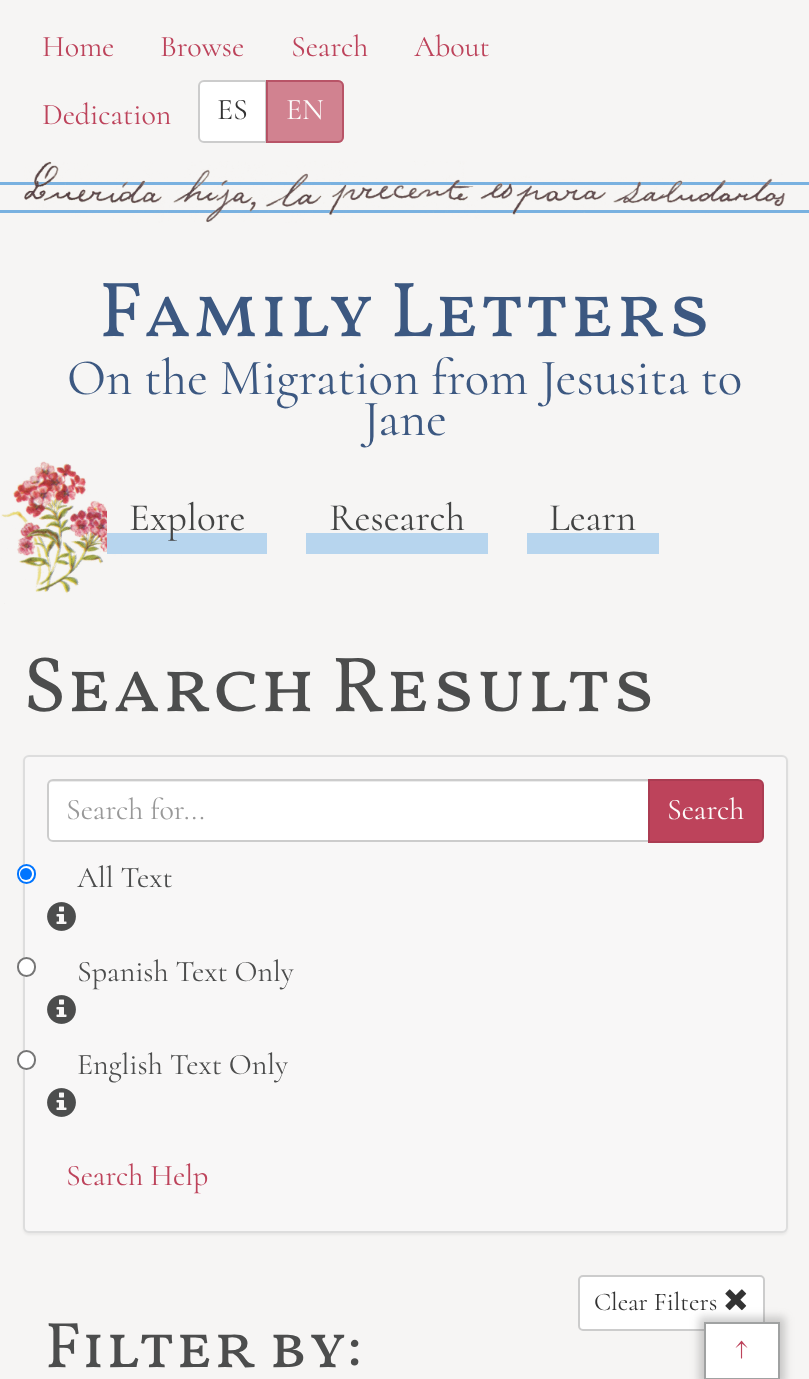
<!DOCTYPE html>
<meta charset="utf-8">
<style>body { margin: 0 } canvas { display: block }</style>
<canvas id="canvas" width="809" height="1379"></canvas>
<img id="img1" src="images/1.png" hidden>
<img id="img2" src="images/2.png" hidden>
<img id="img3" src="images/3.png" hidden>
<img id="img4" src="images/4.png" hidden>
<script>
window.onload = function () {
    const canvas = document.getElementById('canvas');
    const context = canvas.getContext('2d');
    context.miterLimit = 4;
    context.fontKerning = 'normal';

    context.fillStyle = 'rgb(246, 245, 244)';
    context.fillRect(0, 0, 809, 1379);
    context.fillStyle = 'rgb(255, 255, 255)';
    context.beginPath();
    context.roundRect(199, 81, 67, 61, [5, 0, 0, 5]);
    context.fill();
    context.strokeStyle = 'rgb(204, 204, 204)';
    context.lineWidth = 2;
    context.stroke();
    context.fillStyle = 'rgba(189, 67, 91, 0.65)';
    context.beginPath();
    context.roundRect(266, 80, 78, 63, [0, 6, 6, 0]);
    context.fill();
    context.beginPath();
    context.roundRect(267, 81, 76, 61, [0, 5, 5, 0]);
    context.strokeStyle = 'rgba(171, 60, 82, 0.65)';
    context.stroke();
    context.fillStyle = 'rgb(121, 177, 224)';
    context.fillRect(0, 182, 809, 3);
    context.fillRect(0, 210, 809, 3);
    context.drawImage(document.getElementById('img1'), 24, 161, 762, 62);
    context.drawImage(document.getElementById('img2'), 1, 461, 121, 143);
    context.fillStyle = 'rgb(246, 245, 244)';
    context.fillRect(107, 497, 15, 36);
    context.fillStyle = 'rgb(183, 213, 238)';
    context.fillRect(107, 533, 160, 21);
    context.fillRect(306, 533, 182, 21);
    context.fillRect(527, 533, 132, 21);
    context.fillStyle = 'rgba(0, 0, 0, 0.05)';
    context.filter = 'blur(1px)';
    context.beginPath();
    context.roundRect(23, 756, 765, 479, 6);
    context.fill();
    context.filter = 'none';
    context.fillStyle = 'rgb(248, 247, 247)';
    context.beginPath();
    context.roundRect(24, 756, 763, 476, 5);
    context.fill();
    context.strokeStyle = 'rgb(221, 221, 221)';
    context.stroke();
    context.fillStyle = 'rgb(255, 255, 255)';
    context.beginPath();
    context.roundRect(47, 779, 603, 63, [6, 0, 0, 6]);
    context.fill();
    context.fillStyle = 'rgb(236, 236, 236)';
    context.beginPath();
    context.moveTo(52, 782);
    context.lineTo(648, 782);
    context.lineTo(648, 780);
    context.lineTo(53, 780);
    context.bezierCurveTo(50, 780, 48, 783, 48, 786);
    context.bezierCurveTo(48, 784, 50, 782, 52, 782);
    context.closePath();
    context.fill();
    context.beginPath();
    context.roundRect(48, 780, 601, 61, [5, 0, 0, 5]);
    context.strokeStyle = 'rgb(204, 204, 204)';
    context.stroke();
    context.fillStyle = 'rgb(189, 67, 91)';
    context.beginPath();
    context.roundRect(649, 780, 114, 62, [0, 5, 5, 0]);
    context.fill();
    context.strokeStyle = 'rgb(171, 60, 82)';
    context.stroke();
    context.fillStyle = 'rgb(255, 255, 255)';
    context.beginPath();
    context.roundRect(18, 865, 17, 18, 8.5);
    context.fill();
    context.strokeStyle = 'rgb(0, 117, 255)';
    context.stroke();
    context.fillStyle = 'rgb(0, 117, 255)';
    context.beginPath();
    context.arc(26, 874, 6, 0, 2 * Math.PI);
    context.fill();
    context.drawImage(document.getElementById('img3'), 47, 902, 29, 29);
    context.fillStyle = 'rgb(255, 255, 255)';
    context.beginPath();
    context.roundRect(18, 958, 17, 18, 8.5);
    context.fill();
    context.strokeStyle = 'rgb(118, 118, 118)';
    context.stroke();
    context.drawImage(document.getElementById('img3'), 47, 995, 29, 29);
    context.beginPath();
    context.roundRect(18, 1051, 17, 18, 8.5);
    context.fill();
    context.stroke();
    context.drawImage(document.getElementById('img3'), 47, 1088, 29, 29);
    context.beginPath();
    context.roundRect(579, 1276, 185, 54, 4);
    context.fill();
    context.strokeStyle = 'rgb(204, 204, 204)';
    context.stroke();
    context.drawImage(document.getElementById('img4'), 725, 1289, 22, 22);
    context.fillStyle = 'rgba(92, 94, 94, 0.3)';
    context.filter = 'blur(4px)';
    context.beginPath();
    context.rect(699, 1317, 86, 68);
    context.fill();
    context.filter = 'none';
    context.fillStyle = 'rgb(255, 255, 255)';
    context.beginPath();
    context.rect(705, 1323, 74, 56);
    context.fill();
    context.strokeStyle = 'rgb(160, 162, 162)';
    context.stroke();
    context.font = '300 30px Cormorant';
    context.fillStyle = 'rgb(189, 67, 91)';
    context.fillText('Home', 42, 56);
    context.fillText('Browse', 160, 56);
    context.fillText('Search', 291, 56);
    context.fillText('About', 414, 56);
    context.fillText('Dedication', 42, 124);
    context.fillStyle = 'rgb(51, 51, 51)';
    context.fillText('ES', 217, 119);
    context.fillStyle = 'rgb(252, 252, 251)';
    context.fillText('EN', 286, 119);
    context.font = '78px Vollkorn SC';
    context.fillStyle = 'rgb(60, 88, 129)';
    context.fillText('Family Letters', 99, 336);
    context.font = '300 51px Cormorant';
    context.fillText('On the Migration from Jesusita to', 67, 394);
    context.fillText('Jane', 363, 435);
    context.font = '300 39px Cormorant';
    context.fillStyle = 'rgb(67, 68, 68)';
    context.fillText('Explore', 129, 530);
    context.fillText('Research', 329, 530);
    context.fillText('Learn', 549, 530);
    context.font = '78px Vollkorn SC';
    context.fillStyle = 'rgb(76, 77, 77)';
    context.fillText('Search Results', 23, 711);
    context.font = '300 30px Cormorant';
    context.fillStyle = 'rgb(153, 153, 153)';
    context.fillText('Search for...', 66, 819);
    context.fillStyle = 'rgb(252, 252, 251)';
    context.fillText('Search', 667, 819);
    context.fillStyle = 'rgb(76, 77, 77)';
    context.fillText('All Text', 77, 887);
    context.fillText('Spanish Text Only', 77, 981);
    context.fillText('English Text Only', 77, 1074);
    context.fillStyle = 'rgb(189, 67, 91)';
    context.fillText('Search Help', 66, 1185);
    context.font = '300 25.5px Cormorant';
    context.fillStyle = 'rgb(51, 51, 51)';
    context.fillText('Clear Filters', 594, 1310);
    context.font = '64.5px Vollkorn SC';
    context.fillStyle = 'rgb(76, 77, 77)';
    context.fillText('Filter by:', 45, 1367);
    context.font = '300 30px Cormorant';
    context.fillStyle = 'rgb(189, 67, 91)';
    context.fillText('↑', 735, 1357);
};
</script>
